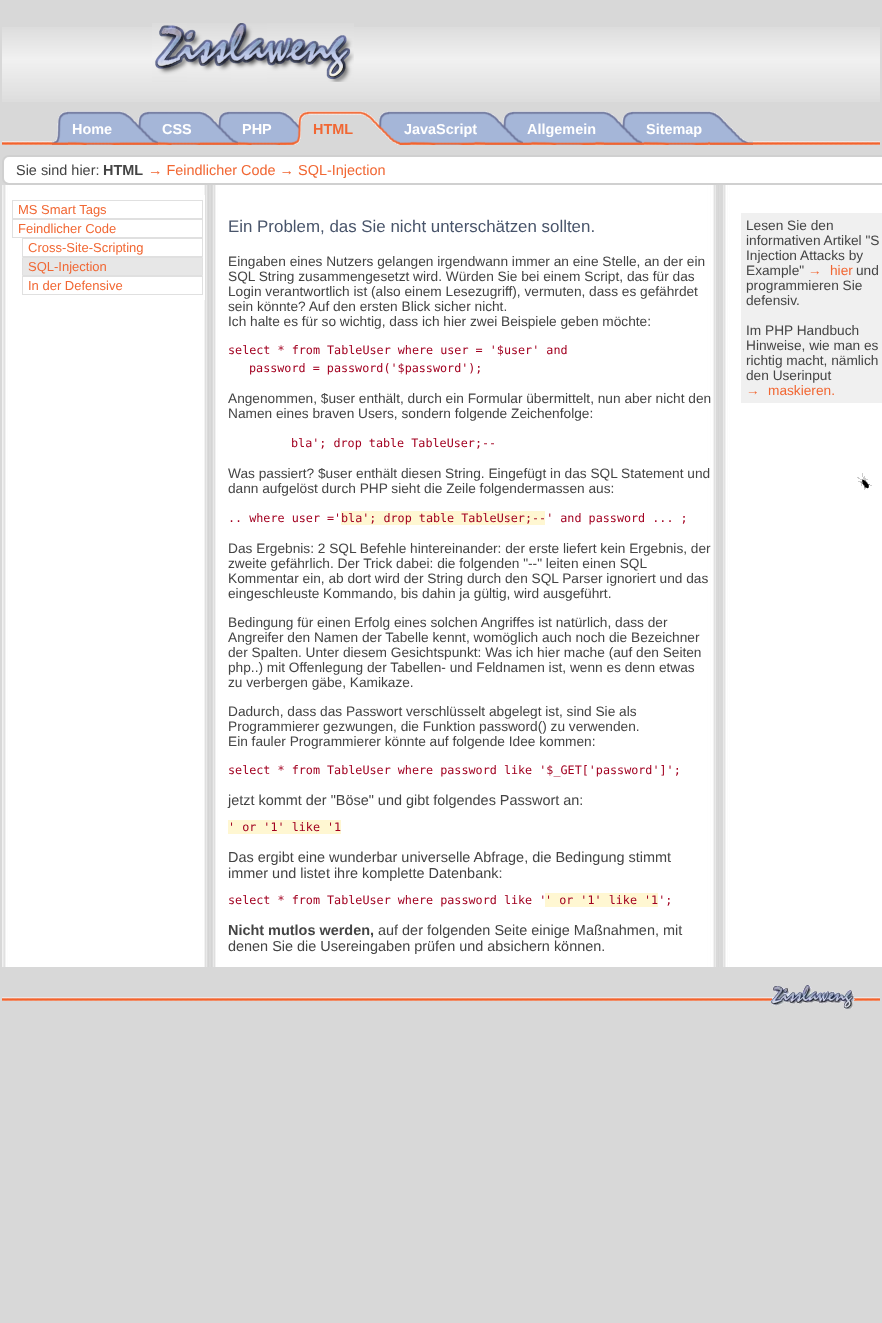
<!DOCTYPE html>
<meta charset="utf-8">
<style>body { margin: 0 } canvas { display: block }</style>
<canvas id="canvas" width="882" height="1323"></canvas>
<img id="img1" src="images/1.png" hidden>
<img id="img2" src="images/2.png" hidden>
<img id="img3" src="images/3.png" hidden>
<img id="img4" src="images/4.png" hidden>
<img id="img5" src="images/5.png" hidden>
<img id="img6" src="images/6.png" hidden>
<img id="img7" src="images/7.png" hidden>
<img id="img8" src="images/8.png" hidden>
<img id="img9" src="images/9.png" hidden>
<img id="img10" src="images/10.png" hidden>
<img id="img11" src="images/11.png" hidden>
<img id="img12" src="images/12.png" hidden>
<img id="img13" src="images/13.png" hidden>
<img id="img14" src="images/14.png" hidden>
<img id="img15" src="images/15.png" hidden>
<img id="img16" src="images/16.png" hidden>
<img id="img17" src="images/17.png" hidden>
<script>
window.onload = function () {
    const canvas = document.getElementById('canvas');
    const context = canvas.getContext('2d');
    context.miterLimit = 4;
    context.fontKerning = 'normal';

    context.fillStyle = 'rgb(216, 216, 216)';
    context.fillRect(0, 0, 882, 1323);
    context.drawImage(document.getElementById('img1'), 2, 27, 878, 75);
    context.drawImage(document.getElementById('img2'), 152, 23, 202, 59);
    context.drawImage(document.getElementById('img3'), 2, 141, 878, 4);
    context.drawImage(document.getElementById('img4'), 52, 111, 16, 34);
    context.drawImage(document.getElementById('img5'), 68, 111, 52, 34);
    context.drawImage(document.getElementById('img6'), 120, 111, 38, 34);
    context.drawImage(document.getElementById('img7'), 158, 111, 42, 34);
    context.drawImage(document.getElementById('img6'), 200, 111, 38, 34);
    context.drawImage(document.getElementById('img7'), 238, 111, 42, 34);
    context.drawImage(document.getElementById('img8'), 280, 111, 29, 34);
    context.drawImage(document.getElementById('img9'), 309, 111, 52, 34);
    context.drawImage(document.getElementById('img10'), 361, 111, 39, 34);
    context.drawImage(document.getElementById('img11'), 400, 111, 85, 34);
    context.drawImage(document.getElementById('img6'), 485, 111, 38, 34);
    context.drawImage(document.getElementById('img12'), 523, 111, 81, 34);
    context.drawImage(document.getElementById('img6'), 604, 111, 38, 34);
    context.drawImage(document.getElementById('img13'), 642, 111, 68, 34);
    context.drawImage(document.getElementById('img14'), 710, 111, 43, 34);
    context.fillStyle = 'rgb(255, 255, 255)';
    context.beginPath();
    context.roundRect(3, 156, 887, 28, 6);
    context.fill();
    context.strokeStyle = 'rgb(208, 208, 208)';
    context.lineWidth = 2;
    context.stroke();
    context.drawImage(document.getElementById('img15'), 2, 185, 880, 782);
    context.fillRect(204, 195, 1, 105);
    context.strokeStyle = 'rgb(224, 224, 224)';
    context.lineWidth = 1;
    context.strokeRect(12.5, 200.5, 190, 18);
    context.strokeRect(12.5, 219.5, 190, 18);
    context.strokeRect(22.5, 238.5, 180, 18);
    context.fillStyle = 'rgb(231, 231, 231)';
    context.beginPath();
    context.rect(22.5, 257.5, 180, 18);
    context.fill();
    context.stroke();
    context.strokeRect(22.5, 276.5, 180, 18);
    context.fillStyle = 'rgb(255, 247, 210)';
    context.fillRect(341, 511, 204, 14);
    context.fillRect(228, 820, 113, 14);
    context.fillRect(545, 893, 113, 14);
    context.fillStyle = 'rgb(240, 240, 240)';
    context.fillRect(741, 213, 141, 190);
    context.drawImage(document.getElementById('img16'), 857, 473, 15, 17);
    context.drawImage(document.getElementById('img3'), 2, 997, 878, 4);
    context.drawImage(document.getElementById('img17'), 771, 985, 84, 24);
    context.font = 'bold 14.45px Liberation Sans';
    context.fillStyle = 'rgb(255, 255, 255)';
    context.fillText('Home', 72, 134);
    context.fillText('CSS', 162, 134);
    context.fillText('PHP', 242, 134);
    context.fillStyle = 'rgb(241, 103, 51)';
    context.fillText('HTML', 313, 134);
    context.fillStyle = 'rgb(255, 255, 255)';
    context.fillText('JavaScript', 404, 134);
    context.fillText('Allgemein', 527, 134);
    context.fillText('Sitemap', 646, 134);
    context.font = '14.45px Liberation Sans';
    context.fillStyle = 'rgb(68, 68, 68)';
    context.fillText('Sie sind hier:', 16, 175);
    context.font = 'bold 14.45px Liberation Sans';
    context.fillText('HTML', 103, 175);
    context.font = '14.45px Liberation Sans';
    context.fillStyle = 'rgb(241, 103, 51)';
    context.fillText('→ Feindlicher Code → SQL-Injection', 148, 175);
    context.font = '13px Liberation Sans';
    context.fillText('MS Smart Tags', 18, 214);
    context.fillText('Feindlicher Code', 18, 233);
    context.fillText('Cross-Site-Scripting', 28, 252);
    context.fillText('SQL-Injection', 28, 271);
    context.fillText('In der Defensive', 28, 290);
    context.font = '16.9px Liberation Sans';
    context.fillStyle = 'rgb(72, 84, 106)';
    context.fillText('Ein Problem, das Sie nicht unterschätzen sollten.', 228, 232);
    context.font = '13.7px Liberation Sans';
    context.fillStyle = 'rgb(68, 68, 68)';
    context.fillText('Eingaben eines Nutzers gelangen irgendwann immer an eine Stelle, an der ein', 228, 266);
    context.fillText('SQL String zusammengesetzt wird. Würden Sie bei einem Script, das für das', 228, 281);
    context.fillText('Login verantwortlich ist (also einem Lesezugriff), vermuten, dass es gefährdet', 228, 296);
    context.fillText('sein könnte? Auf den ersten Blick sicher nicht.', 228, 311);
    context.fillText('Ich halte es für so wichtig, dass ich hier zwei Beispiele geben möchte:', 228, 326);
    context.font = '11.75px DejaVu Sans Mono';
    context.fillStyle = 'rgb(162, 1, 32)';
    context.fillText('select * from TableUser where user = \'$user\' and', 228, 354);
    context.fillText('password = password(\'$password\');', 249, 372);
    context.font = '13.7px Liberation Sans';
    context.fillStyle = 'rgb(68, 68, 68)';
    context.fillText('Angenommen, $user enthält, durch ein Formular übermittelt, nun aber nicht den', 228, 403);
    context.fillText('Namen eines braven Users, sondern folgende Zeichenfolge:', 228, 418);
    context.font = '11.75px DejaVu Sans Mono';
    context.fillStyle = 'rgb(162, 1, 32)';
    context.fillText('bla\'; drop table TableUser;--', 291, 447);
    context.font = '13.7px Liberation Sans';
    context.fillStyle = 'rgb(68, 68, 68)';
    context.fillText('Was passiert? $user enthält diesen String. Eingefügt in das SQL Statement und', 228, 478);
    context.fillText('dann aufgelöst durch PHP sieht die Zeile folgendermassen aus:', 228, 493);
    context.font = '11.75px DejaVu Sans Mono';
    context.fillStyle = 'rgb(162, 1, 32)';
    context.fillText('.. where user =\'', 228, 522);
    context.fillText('bla\'; drop table TableUser;--\' and password ... ;', 341, 522);
    context.font = '13.7px Liberation Sans';
    context.fillStyle = 'rgb(68, 68, 68)';
    context.fillText('Das Ergebnis: 2 SQL Befehle hintereinander: der erste liefert kein Ergebnis, der', 228, 553);
    context.fillText('zweite gefährlich. Der Trick dabei: die folgenden "--" leiten einen SQL', 228, 568);
    context.fillText('Kommentar ein, ab dort wird der String durch den SQL Parser ignoriert und das', 228, 583);
    context.fillText('eingeschleuste Kommando, bis dahin ja gültig, wird ausgeführt.', 228, 598);
    context.fillText('Bedingung für einen Erfolg eines solchen Angriffes ist natürlich, dass der', 228, 627);
    context.fillText('Angreifer den Namen der Tabelle kennt, womöglich auch noch die Bezeichner', 228, 642);
    context.fillText('der Spalten. Unter diesem Gesichtspunkt: Was ich hier mache (auf den Seiten', 228, 657);
    context.fillText('php..) mit Offenlegung der Tabellen- und Feldnamen ist, wenn es denn etwas', 228, 672);
    context.fillText('zu verbergen gäbe, Kamikaze.', 228, 687);
    context.fillText('Dadurch, dass das Passwort verschlüsselt abgelegt ist, sind Sie als', 228, 716);
    context.fillText('Programmierer gezwungen, die Funktion password() zu verwenden.', 228, 731);
    context.fillText('Ein fauler Programmierer könnte auf folgende Idee kommen:', 228, 746);
    context.font = '11.75px DejaVu Sans Mono';
    context.fillStyle = 'rgb(162, 1, 32)';
    context.fillText('select * from TableUser where password like \'$_GET[\'password\']\';', 228, 774);
    context.font = '14.45px Liberation Sans';
    context.fillStyle = 'rgb(68, 68, 68)';
    context.fillText('jetzt kommt der "Böse" und gibt folgendes Passwort an:', 228, 805);
    context.font = '11.75px DejaVu Sans Mono';
    context.fillStyle = 'rgb(162, 1, 32)';
    context.fillText('\' or \'1\' like \'1', 228, 831);
    context.font = '14.45px Liberation Sans';
    context.fillStyle = 'rgb(68, 68, 68)';
    context.fillText('Das ergibt eine wunderbar universelle Abfrage, die Bedingung stimmt', 228, 862);
    context.fillText('immer und listet ihre komplette Datenbank:', 228, 878);
    context.font = '11.75px DejaVu Sans Mono';
    context.fillStyle = 'rgb(162, 1, 32)';
    context.fillText('select * from TableUser where password like \'', 228, 904);
    context.fillText('\' or \'1\' like \'1\';', 545, 904);
    context.font = 'bold 14.45px Liberation Sans';
    context.fillStyle = 'rgb(68, 68, 68)';
    context.fillText('Nicht mutlos werden,', 228, 935);
    context.font = '14.45px Liberation Sans';
    context.fillText('auf der folgenden Seite einige Maßnahmen, mit', 378, 935);
    context.fillText('denen Sie die Usereingaben prüfen und absichern können.', 228, 951);
    context.font = '13.7px Liberation Sans';
    context.fillText('Lesen Sie den', 746, 230);
    context.fillText('informativen Artikel "S', 746, 245);
    context.fillText('Injection Attacks by', 746, 260);
    context.fillText('Example"', 746, 275);
    context.fillStyle = 'rgb(241, 103, 51)';
    context.fillText('→', 808, 275);
    context.fillText('hier', 830, 275);
    context.fillStyle = 'rgb(68, 68, 68)';
    context.fillText('und', 856, 275);
    context.fillText('programmieren Sie', 746, 290);
    context.fillText('defensiv.', 746, 305);
    context.fillText('Im PHP Handbuch', 746, 335);
    context.fillText('Hinweise, wie man es', 746, 350);
    context.fillText('richtig macht, nämlich', 746, 365);
    context.fillText('den Userinput', 746, 380);
    context.fillStyle = 'rgb(241, 103, 51)';
    context.fillText('→', 746, 395);
    context.fillText('maskieren.', 768, 395);
};
</script>
